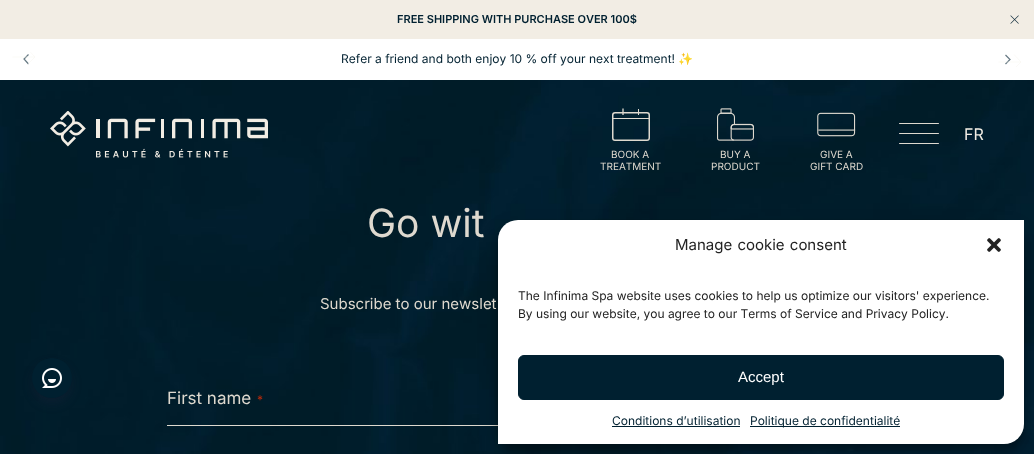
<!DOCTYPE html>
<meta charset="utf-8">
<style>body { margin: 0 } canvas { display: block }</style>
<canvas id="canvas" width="1034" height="454"></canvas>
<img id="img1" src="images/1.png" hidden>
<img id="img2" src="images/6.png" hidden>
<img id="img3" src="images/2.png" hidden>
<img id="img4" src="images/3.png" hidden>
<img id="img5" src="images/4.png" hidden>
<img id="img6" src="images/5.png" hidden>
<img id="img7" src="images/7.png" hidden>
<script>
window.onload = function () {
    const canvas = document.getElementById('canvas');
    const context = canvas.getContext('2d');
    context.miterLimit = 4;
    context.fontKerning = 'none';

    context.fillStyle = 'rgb(255, 255, 255)';
    context.fillRect(0, 0, 1034, 454);
    context.fillStyle = 'rgb(242, 237, 228)';
    context.fillRect(0, 0, 1034, 39);
    context.drawImage(document.getElementById('img1'), 1010, 15, 9, 9);
    context.beginPath();
    context.moveTo(28.5, 54.5);
    context.lineTo(24, 59);
    context.lineTo(28.5, 64);
    context.strokeStyle = 'rgb(102, 121, 131)';
    context.lineWidth = 1.2;
    context.stroke();
    context.beginPath();
    context.moveTo(12.5, 57);
    context.lineTo(35, 57);
    context.strokeStyle = 'rgb(247, 244, 239)';
    context.lineWidth = 0.5;
    context.stroke();
    context.save();
    context.beginPath();
    context.rect(12, 52, 24, 13);
    context.clip();
    context.beginPath();
    context.moveTo(28, 64);
    context.lineTo(35, 57);
    context.lineTo(28, 49.5);
    context.stroke();
    context.restore();
    context.beginPath();
    context.moveTo(1005.5, 64);
    context.lineTo(1010, 59.5);
    context.lineTo(1005.5, 55);
    context.strokeStyle = 'rgb(102, 121, 131)';
    context.lineWidth = 1.2;
    context.stroke();
    context.beginPath();
    context.moveTo(998.5, 62);
    context.lineTo(1021, 62);
    context.strokeStyle = 'rgb(247, 244, 239)';
    context.lineWidth = 0.5;
    context.stroke();
    context.save();
    context.beginPath();
    context.rect(998, 54, 24, 13);
    context.clip();
    context.beginPath();
    context.moveTo(1014, 69);
    context.lineTo(1021, 62);
    context.lineTo(1014, 54.5);
    context.stroke();
    context.restore();
    context.drawImage(document.getElementById('img2'), 0, 80, 1034, 374);
    context.drawImage(document.getElementById('img3'), 50, 111, 218, 47);
    context.fillStyle = 'rgb(222, 217, 207)';
    context.beginPath();
    context.roundRect(899, 133, 40, 1, 0.5);
    context.fill();
    context.beginPath();
    context.roundRect(899, 123, 40, 1, 0.5);
    context.fill();
    context.beginPath();
    context.roundRect(899, 143, 40, 1, 0.5);
    context.fill();
    context.beginPath();
    context.roundRect(612.75, 112.75, 36.5, 27.5, 2.25);
    context.strokeStyle = 'rgb(222, 217, 207)';
    context.lineWidth = 1.5;
    context.stroke();
    context.beginPath();
    context.moveTo(623, 108.5);
    context.lineTo(623, 115);
    context.lineWidth = 1.3;
    context.stroke();
    context.fillRect(638, 109, 1, 6);
    context.fillRect(612, 118, 38, 1);
    context.drawImage(document.getElementById('img4'), 717, 108, 37, 33);
    context.drawImage(document.getElementById('img5'), 817, 112, 39, 25);
    context.fillStyle = 'rgba(0, 0, 0, 0.3)';
    context.filter = 'blur(3.5px)';
    context.beginPath();
    context.roundRect(35, 364, 34, 34, 17);
    context.fill();
    context.filter = 'none';
    context.fillStyle = 'rgba(50, 50, 93, 0.25)';
    context.filter = 'blur(6px)';
    context.beginPath();
    context.roundRect(34, 366, 36, 36, 18);
    context.fill();
    context.filter = 'none';
    context.fillStyle = 'rgb(0, 32, 48)';
    context.beginPath();
    context.arc(52, 378, 20, 0, 2 * Math.PI);
    context.fill();
    context.drawImage(document.getElementById('img6'), 42, 368, 20, 20);
    context.fillStyle = 'rgb(222, 217, 207)';
    context.fillRect(167, 425, 331, 1);
    context.fillStyle = 'rgba(0, 0, 0, 0.23)';
    context.filter = 'blur(3px)';
    context.beginPath();
    context.roundRect(498, 226, 526, 224, 20);
    context.fill();
    context.filter = 'none';
    context.fillStyle = 'rgba(0, 0, 0, 0.19)';
    context.filter = 'blur(10px)';
    context.beginPath();
    context.roundRect(498, 230, 526, 224, 20);
    context.fill();
    context.filter = 'none';
    context.fillStyle = 'rgb(255, 255, 255)';
    context.beginPath();
    context.roundRect(498, 220, 526, 224, [20, 0, 20, 0]);
    context.fill();
    context.drawImage(document.getElementById('img7'), 987, 238, 14, 14);
    context.fillStyle = 'rgb(0, 32, 48)';
    context.beginPath();
    context.roundRect(518.5, 355.5, 485, 44, 5.5);
    context.fill();
    context.strokeStyle = 'rgb(0, 32, 48)';
    context.lineWidth = 1;
    context.stroke();
    context.fillRect(612, 426, 128, 1);
    context.fillRect(750, 426, 150, 1);
    context.font = '600 11px Inter';
    context.fillText('FREE SHIPPING WITH PURCHASE OVER 100$', 397, 23);
    context.font = '12px Inter';
    context.fillText('Refer a friend and both enjoy 10 % off your next treatment!', 341, 63);
    context.font = '12px Noto Color Emoji';
    context.fillText('✨', 678, 63);
    context.font = '16px Inter';
    context.fillStyle = 'rgb(242, 237, 228)';
    context.fillText('FR', 964, 140);
    context.font = '10px Inter';
    context.fillStyle = 'rgb(222, 217, 207)';
    context.fillText('BOOK A', 611, 158);
    context.fillText('TREATMENT', 600, 170);
    context.fillText('BUY A', 720, 158);
    context.fillText('PRODUCT', 711, 170);
    context.fillText('GIVE A', 820, 158);
    context.fillText('GIFT CARD', 810, 170);
    context.font = '39px Inter';
    context.fillText('Go wit', 367, 237);
    context.font = '15px Inter';
    context.fillText('Subscribe to our newslet', 320, 309);
    context.font = '17px Inter';
    context.fillText('First name', 167, 404);
    context.font = '12px Inter';
    context.fillStyle = 'rgb(192, 43, 10)';
    context.fillText('*', 257, 404);
    context.wordSpacing = '1px';
    context.font = '15px Inter';
    context.fillStyle = 'rgb(34, 34, 34)';
    context.fillText('Manage cookie consent', 675, 250);
    context.wordSpacing = '0px';
    context.font = '12px Inter';
    context.fillText('The Infinima Spa website uses cookies to help us optimize our visitors\' experience.', 518, 300);
    context.fillText('By using our website, you agree to our Terms of Service and Privacy Policy.', 518, 318);
    context.font = '15px Liberation Sans';
    context.fillStyle = 'rgb(255, 255, 255)';
    context.fillText('Accept', 738, 382);
    context.font = '12px Inter';
    context.fillStyle = 'rgb(0, 32, 48)';
    context.fillText('Conditions d’utilisation', 612, 425);
    context.fillText('Politique de confidentialité', 750, 425);
};
</script>
